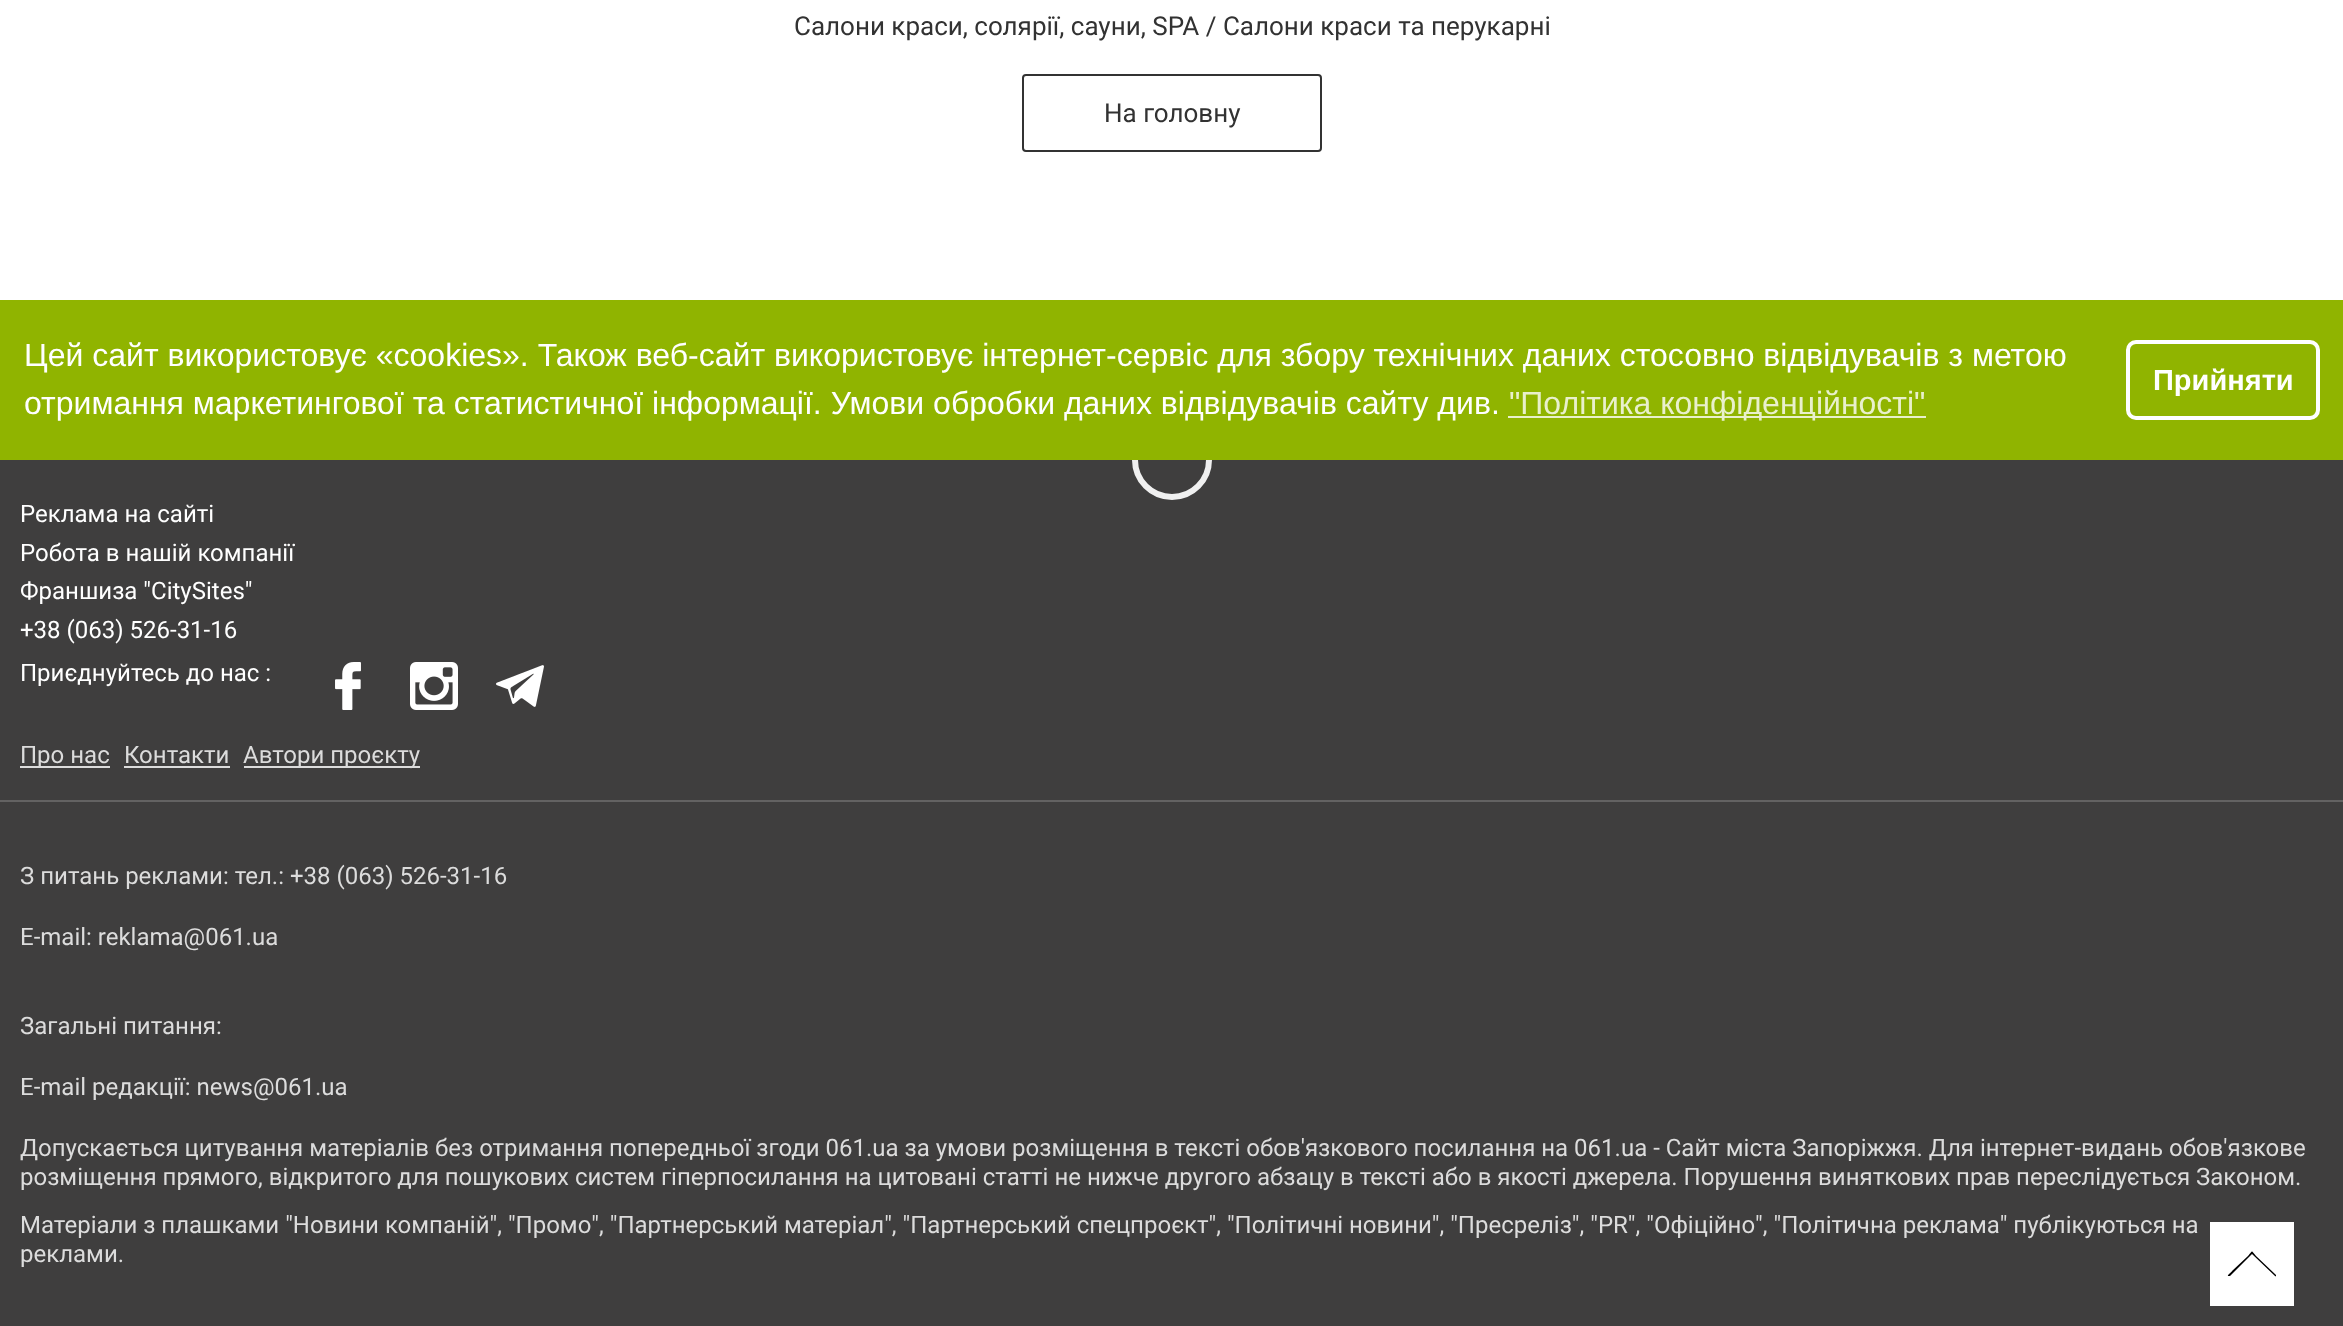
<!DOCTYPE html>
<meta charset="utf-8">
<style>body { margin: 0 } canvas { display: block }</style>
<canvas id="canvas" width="2343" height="1326"></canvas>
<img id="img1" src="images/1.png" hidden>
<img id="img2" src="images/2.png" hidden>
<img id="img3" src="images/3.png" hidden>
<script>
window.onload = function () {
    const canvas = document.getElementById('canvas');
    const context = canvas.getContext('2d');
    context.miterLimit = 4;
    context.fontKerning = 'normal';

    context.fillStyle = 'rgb(255, 255, 255)';
    context.fillRect(0, 0, 2343, 1326);
    context.beginPath();
    context.roundRect(1023, 75, 298, 76, 3);
    context.strokeStyle = 'rgb(50, 50, 50)';
    context.lineWidth = 2;
    context.stroke();
    context.fillStyle = 'rgb(63, 62, 62)';
    context.fillRect(0, 460, 2343, 866);
    context.beginPath();
    context.arc(1172, 460, 37, 0, 2 * Math.PI);
    context.fill();
    context.strokeStyle = 'rgb(240, 240, 240)';
    context.lineWidth = 6;
    context.stroke();
    context.fillStyle = 'rgb(144, 180, 0)';
    context.fillRect(0, 300, 2343, 160);
    context.fillStyle = 'rgb(233, 240, 204)';
    context.fillRect(1508, 416, 418, 2);
    context.beginPath();
    context.roundRect(2128, 342, 190, 76, 8);
    context.strokeStyle = 'rgb(255, 255, 255)';
    context.lineWidth = 4;
    context.stroke();
    context.drawImage(document.getElementById('img1'), 335, 662, 26, 48);
    context.drawImage(document.getElementById('img2'), 410, 662, 48, 48);
    context.drawImage(document.getElementById('img3'), 496, 665, 48, 42);
    context.fillStyle = 'rgb(220, 220, 220)';
    context.fillRect(20, 766, 90, 2);
    context.fillRect(124, 766, 106, 2);
    context.fillRect(244, 766, 176, 2);
    context.fillStyle = 'rgb(99, 98, 98)';
    context.fillRect(0, 800, 2343, 2);
    context.fillStyle = 'rgb(255, 255, 255)';
    context.fillRect(2210, 1222, 84, 84);
    context.fillStyle = 'rgb(0, 0, 0)';
    context.beginPath();
    context.moveTo(2276, 1275);
    context.lineTo(2256, 1256);
    context.bezierCurveTo(2251, 1250, 2253, 1250, 2248, 1256);
    context.lineTo(2232, 1271);
    context.bezierCurveTo(2232, 1272, 2227, 1275, 2228, 1276);
    context.lineTo(2230, 1276);
    context.lineTo(2252, 1254);
    context.lineTo(2275, 1276);
    context.bezierCurveTo(2276, 1277, 2276, 1276, 2276, 1275);
    context.closePath();
    context.fill();
    context.font = '26px Roboto';
    context.fillStyle = 'rgb(50, 50, 50)';
    context.fillText('Салони краси, солярії, сауни, SPA / Салони краси та перукарні', 794, 35);
    context.fillText('На головну', 1104, 122);
    context.font = '32px Liberation Sans';
    context.fillStyle = 'rgb(255, 255, 255)';
    context.fillText('Цей сайт використовує «cookies». Також веб-сайт використовує інтернет-сервіс для збору технічних даних стосовно відвідувачів з метою', 24, 366);
    context.fillText('отримання маркетингової та статистичної інформації. Умови обробки даних відвідувачів сайту див.', 24, 414);
    context.fillStyle = 'rgb(233, 240, 204)';
    context.fillText('"Політика конфіденційності"', 1509, 414);
    context.font = 'bold 29px Liberation Sans';
    context.fillStyle = 'rgb(255, 255, 255)';
    context.fillText('Прийняти', 2153, 390);
    context.font = '24px Roboto';
    context.fillText('Реклама на сайті', 20, 522);
    context.fillText('Робота в нашій компанії', 20, 561);
    context.fillText('Франшиза "CitySites"', 20, 599);
    context.fillText('+38 (063) 526-31-16', 20, 638);
    context.fillText('Приєднуйтесь до нас :', 20, 681);
    context.fillStyle = 'rgb(220, 220, 220)';
    context.fillText('Про нас', 20, 763);
    context.fillText('Контакти', 124, 763);
    context.fillText('Автори проєкту', 243, 763);
    context.fillText('З питань реклами: тел.: +38 (063) 526-31-16', 20, 884);
    context.fillText('E-mail: reklama@061.ua', 20, 945);
    context.fillText('Загальні питання:', 20, 1034);
    context.fillText('E-mail редакції: news@061.ua', 20, 1095);
    context.fillText('Допускається цитування матеріалів без отримання попередньої згоди 061.ua за умови розміщення в тексті обов\'язкового посилання на 061.ua - Сайт міста Запоріжжя. Для інтернет-видань обов\'язкове', 20, 1156);
    context.fillText('розміщення прямого, відкритого для пошукових систем гіперпосилання на цитовані статті не нижче другого абзацу в тексті або в якості джерела. Порушення виняткових прав переслідується Законом.', 20, 1185);
    context.fillText('Матеріали з плашками "Новини компаній", "Промо", "Партнерський матеріал", "Партнерський спецпроєкт", "Політичні новини", "Пресреліз", "PR", "Офіційно", "Політична реклама" публікуються на', 20, 1233);
    context.fillText('реклами.', 20, 1262);
};
</script>
